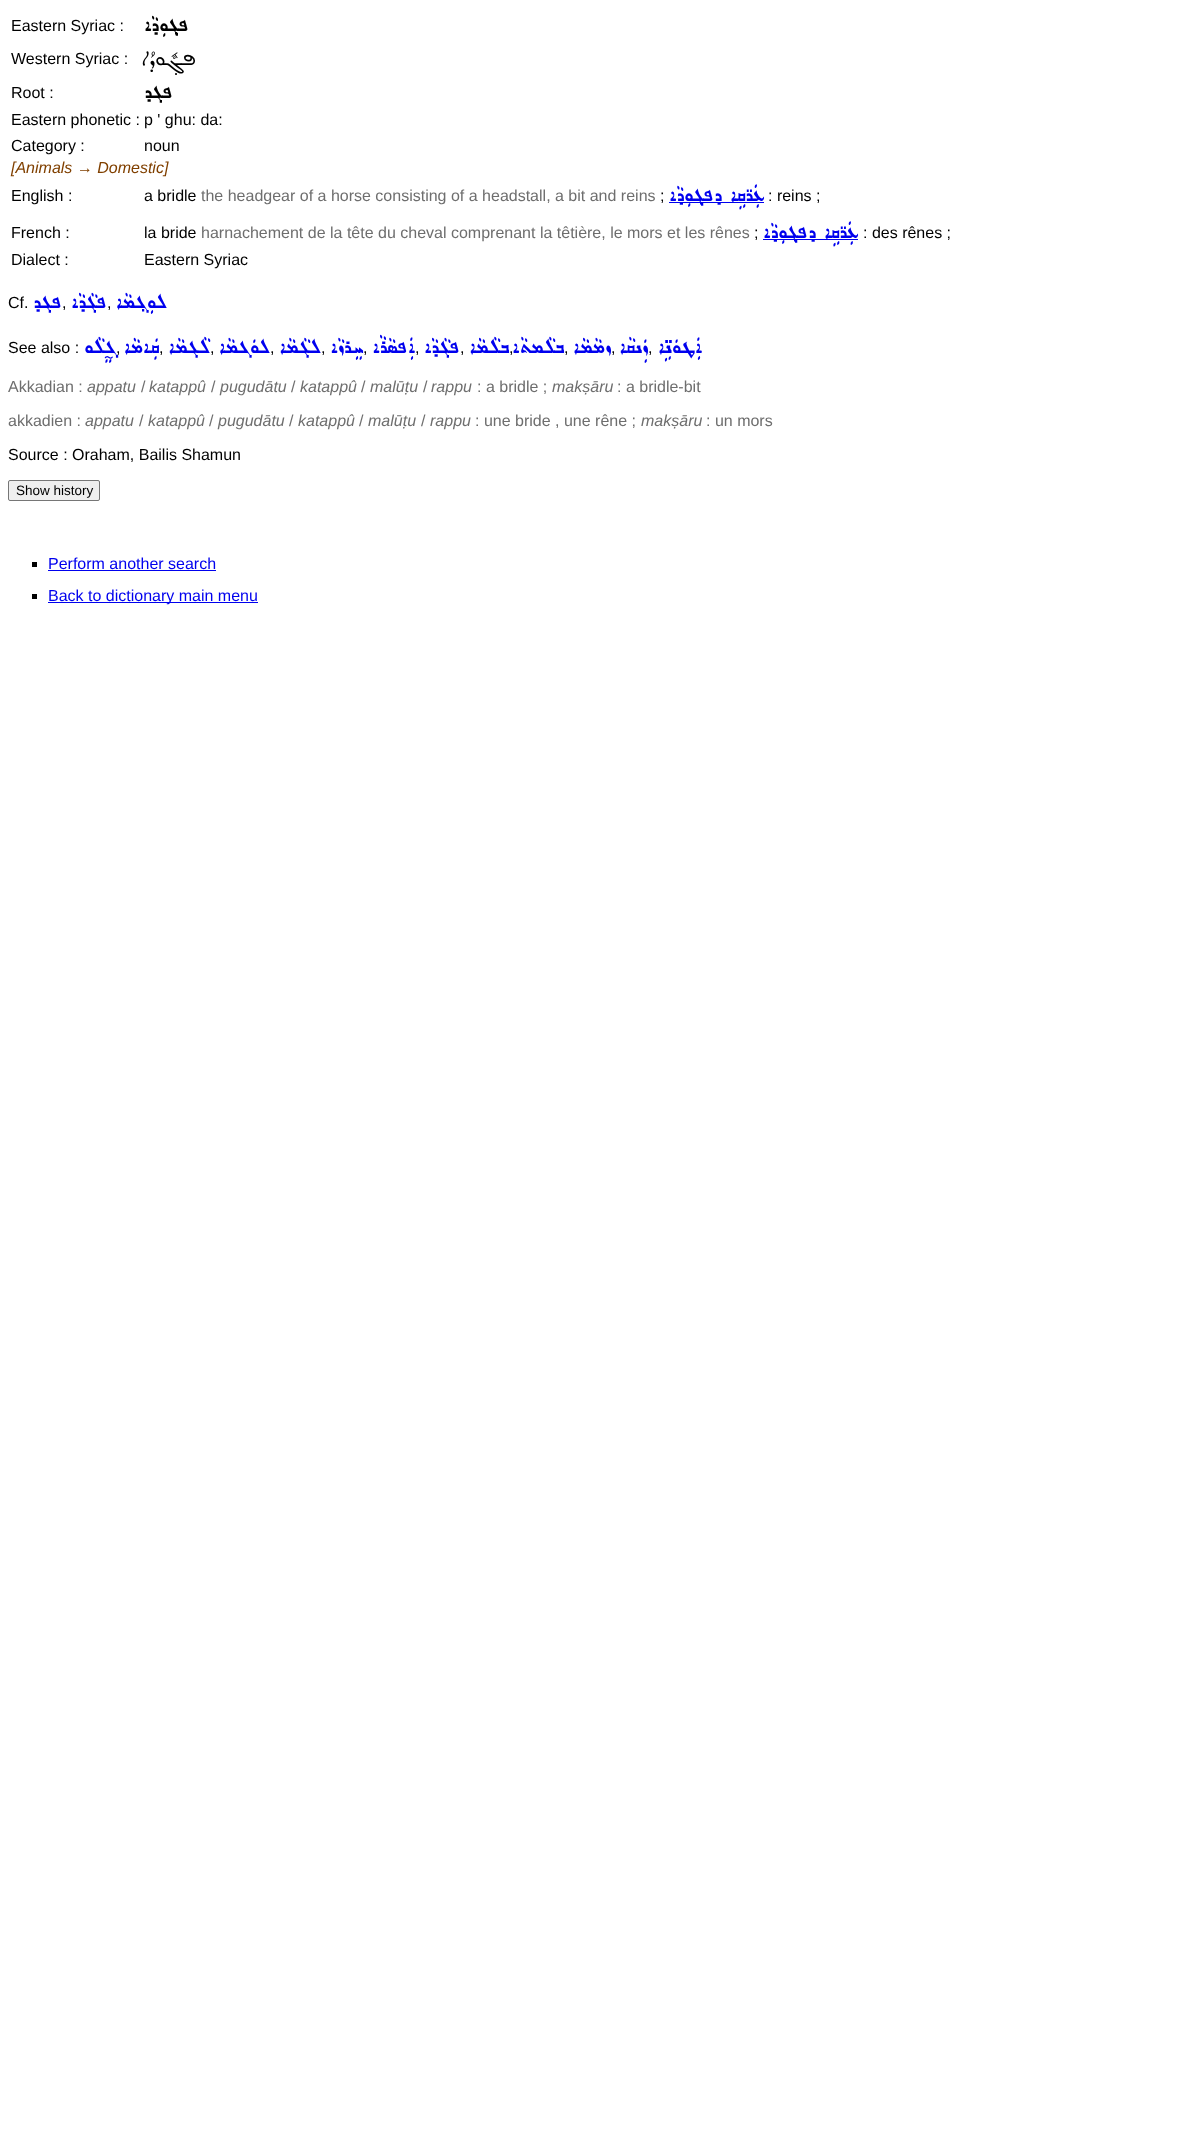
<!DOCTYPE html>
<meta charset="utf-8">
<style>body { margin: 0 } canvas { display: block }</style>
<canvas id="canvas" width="1195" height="2134"></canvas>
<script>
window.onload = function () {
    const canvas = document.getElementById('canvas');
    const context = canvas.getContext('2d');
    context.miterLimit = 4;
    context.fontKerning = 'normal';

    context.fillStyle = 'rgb(255, 255, 255)';
    context.fillRect(0, 0, 1195, 2134);
    context.fillStyle = 'rgb(0, 0, 238)';
    context.fillRect(669, 202, 95, 1);
    context.fillRect(763, 239, 95, 1);
    context.fillStyle = 'rgb(239, 239, 239)';
    context.beginPath();
    context.roundRect(8.5, 480.5, 91, 20, 1.5);
    context.fill();
    context.strokeStyle = 'rgb(118, 118, 118)';
    context.stroke();
    context.fillStyle = 'rgb(0, 0, 0)';
    context.fillRect(32, 562, 5, 5);
    context.fillStyle = 'rgb(0, 0, 238)';
    context.fillRect(48, 570, 168, 1);
    context.fillStyle = 'rgb(0, 0, 0)';
    context.fillRect(32, 594, 5, 5);
    context.fillStyle = 'rgb(0, 0, 238)';
    context.fillRect(48, 602, 210, 1);
    context.font = '16px Liberation Sans';
    context.fillStyle = 'rgb(0, 0, 0)';
    context.fillText('Eastern Syriac :', 11, 31);
    context.direction = 'rtl';
    context.font = '25.5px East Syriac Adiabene';
    context.fillText('ܦܓ݂ܘܼܕܵܐ', 189, 31);
    context.direction = 'ltr';
    context.font = '16px Liberation Sans';
    context.fillText('Western Syriac :', 11, 64);
    context.direction = 'rtl';
    context.font = '27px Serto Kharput';
    context.fillText('ܦܓ݂ܽܘܕܳܐ', 195, 65);
    context.direction = 'ltr';
    context.font = '16px Liberation Sans';
    context.fillText('Root :', 11, 98);
    context.direction = 'rtl';
    context.font = '25.5px East Syriac Adiabene';
    context.fillText('ܦܓܕ', 173, 98);
    context.direction = 'ltr';
    context.font = '16px Liberation Sans';
    context.fillText('Eastern phonetic :', 11, 125);
    context.fillText('p \' ghu: da:', 144, 125);
    context.fillText('Category :', 11, 151);
    context.fillText('noun', 144, 151);
    context.font = 'italic 16px Liberation Sans';
    context.fillStyle = 'rgb(128, 64, 0)';
    context.fillText('[Animals → Domestic]', 11, 173);
    context.font = '16px Liberation Sans';
    context.fillStyle = 'rgb(0, 0, 0)';
    context.fillText('English :', 11, 201);
    context.fillText('a bridle', 144, 201);
    context.fillStyle = 'rgb(110, 110, 110)';
    context.fillText('the headgear of a horse consisting of a headstall, a bit and reins', 201, 201);
    context.fillStyle = 'rgb(0, 0, 0)';
    context.fillText(';', 660, 201);
    context.direction = 'rtl';
    context.font = '25.5px East Syriac Adiabene';
    context.fillStyle = 'rgb(0, 0, 238)';
    context.fillText('ܥܲܪ̈ܩܹܐ ܕܦܓ݂ܘܼܕܵܐ', 764, 201);
    context.direction = 'ltr';
    context.font = '16px Liberation Sans';
    context.fillStyle = 'rgb(0, 0, 0)';
    context.fillText(': reins ;', 768, 201);
    context.fillText('French :', 11, 238);
    context.fillText('la bride', 144, 238);
    context.fillStyle = 'rgb(110, 110, 110)';
    context.fillText('harnachement de la tête du cheval comprenant la têtière, le mors et les rênes', 201, 238);
    context.fillStyle = 'rgb(0, 0, 0)';
    context.fillText(';', 754, 238);
    context.direction = 'rtl';
    context.font = '25.5px East Syriac Adiabene';
    context.fillStyle = 'rgb(0, 0, 238)';
    context.fillText('ܥܲܪ̈ܩܹܐ ܕܦܓ݂ܘܼܕܵܐ', 858, 238);
    context.direction = 'ltr';
    context.font = '16px Liberation Sans';
    context.fillStyle = 'rgb(0, 0, 0)';
    context.fillText(': des rênes ;', 863, 238);
    context.fillText('Dialect :', 11, 265);
    context.fillText('Eastern Syriac', 144, 265);
    context.fillText('Cf.', 8, 308);
    context.direction = 'rtl';
    context.font = '25.5px East Syriac Adiabene';
    context.fillStyle = 'rgb(0, 0, 238)';
    context.fillText('ܦܓܕ', 62, 308);
    context.direction = 'ltr';
    context.font = '16px Liberation Sans';
    context.fillStyle = 'rgb(0, 0, 0)';
    context.fillText(',', 62, 308);
    context.direction = 'rtl';
    context.font = '25.5px East Syriac Adiabene';
    context.fillStyle = 'rgb(0, 0, 238)';
    context.fillText('ܦܓܵܕܵܐ', 107, 308);
    context.direction = 'ltr';
    context.font = '16px Liberation Sans';
    context.fillStyle = 'rgb(0, 0, 0)';
    context.fillText(',', 107, 308);
    context.direction = 'rtl';
    context.font = '25.5px East Syriac Adiabene';
    context.fillStyle = 'rgb(0, 0, 238)';
    context.fillText('ܠܘܼܓ݂ܡܵܐ', 167, 308);
    context.direction = 'ltr';
    context.font = '16px Liberation Sans';
    context.fillStyle = 'rgb(0, 0, 0)';
    context.fillText('See also :', 8, 353);
    context.direction = 'rtl';
    context.font = '25.5px East Syriac Adiabene';
    context.fillStyle = 'rgb(0, 0, 238)';
    context.fillText('ܓ̰ܸܠܵܘ', 116, 353);
    context.fillText('ܩܲܐܡܵܐ', 159, 353);
    context.fillText('ܠܵܓܡܵܐ', 210, 353);
    context.fillText('ܠܘܿܓܡܵܐ', 270, 353);
    context.fillText('ܠܓܵܡܵܐ', 321, 353);
    context.fillText('ܚܸܪܙܵܐ', 363, 353);
    context.fillText('ܐܲܦܣܵܪܵܐ', 415, 353);
    context.fillText('ܦܓܵܕܵܐ', 460, 353);
    context.fillText('ܒܠܵܡܵܐ', 509, 353);
    context.fillText('ܒܠܵܡܬܵܐ', 564, 353);
    context.fillText('ܙܡܵܡܵܐ', 611, 353);
    context.fillText('ܙܲܢܩܵܐ', 648, 353);
    context.fillText('ܐܲܛܘܿܢܹ̈ܐ', 702, 353);
    context.direction = 'ltr';
    context.font = '16px Liberation Sans';
    context.fillStyle = 'rgb(0, 0, 0)';
    context.fillText(',', 116, 353);
    context.fillText(',', 159, 353);
    context.fillText(',', 210, 353);
    context.fillText(',', 270, 353);
    context.fillText(',', 321, 353);
    context.fillText(',', 363, 353);
    context.fillText(',', 415, 353);
    context.fillText(',', 460, 353);
    context.fillText(',', 509, 353);
    context.fillText(',', 564, 353);
    context.fillText(',', 611, 353);
    context.fillText(',', 648, 353);
    context.fillStyle = 'rgb(110, 110, 110)';
    context.fillText('Akkadian :', 8, 392);
    context.font = 'italic 16px Liberation Sans';
    context.fillText('appatu', 87, 392);
    context.font = '16px Liberation Sans';
    context.fillText('/', 141, 392);
    context.font = 'italic 16px Liberation Sans';
    context.fillText('katappû', 149, 392);
    context.font = '16px Liberation Sans';
    context.fillText('/', 211, 392);
    context.font = 'italic 16px Liberation Sans';
    context.fillText('pugudātu', 220, 392);
    context.font = '16px Liberation Sans';
    context.fillText('/', 291, 392);
    context.font = 'italic 16px Liberation Sans';
    context.fillText('katappû', 300, 392);
    context.font = '16px Liberation Sans';
    context.fillText('/', 361, 392);
    context.font = 'italic 16px Liberation Sans';
    context.fillText('malūṭu', 370, 392);
    context.font = '16px Liberation Sans';
    context.fillText('/', 423, 392);
    context.font = 'italic 16px Liberation Sans';
    context.fillText('rappu', 431, 392);
    context.font = '16px Liberation Sans';
    context.fillText(': a bridle ;', 477, 392);
    context.font = 'italic 16px Liberation Sans';
    context.fillText('makṣāru', 552, 392);
    context.font = '16px Liberation Sans';
    context.fillText(': a bridle-bit', 617, 392);
    context.fillText('akkadien :', 8, 426);
    context.font = 'italic 16px Liberation Sans';
    context.fillText('appatu', 85, 426);
    context.font = '16px Liberation Sans';
    context.fillText('/', 139, 426);
    context.font = 'italic 16px Liberation Sans';
    context.fillText('katappû', 148, 426);
    context.font = '16px Liberation Sans';
    context.fillText('/', 209, 426);
    context.font = 'italic 16px Liberation Sans';
    context.fillText('pugudātu', 218, 426);
    context.font = '16px Liberation Sans';
    context.fillText('/', 289, 426);
    context.font = 'italic 16px Liberation Sans';
    context.fillText('katappû', 298, 426);
    context.font = '16px Liberation Sans';
    context.fillText('/', 359, 426);
    context.font = 'italic 16px Liberation Sans';
    context.fillText('malūṭu', 368, 426);
    context.font = '16px Liberation Sans';
    context.fillText('/', 421, 426);
    context.font = 'italic 16px Liberation Sans';
    context.fillText('rappu', 430, 426);
    context.font = '16px Liberation Sans';
    context.fillText(': une bride , une rêne ;', 475, 426);
    context.font = 'italic 16px Liberation Sans';
    context.fillText('makṣāru', 641, 426);
    context.font = '16px Liberation Sans';
    context.fillText(': un mors', 706, 426);
    context.fillStyle = 'rgb(0, 0, 0)';
    context.fillText('Source : Oraham, Bailis Shamun', 8, 460);
    context.font = '13.5px Liberation Sans';
    context.fillText('Show history', 16, 495);
    context.font = '16px Liberation Sans';
    context.fillStyle = 'rgb(0, 0, 238)';
    context.fillText('Perform another search', 48, 569);
    context.fillText('Back to dictionary main menu', 48, 601);
};
</script>
